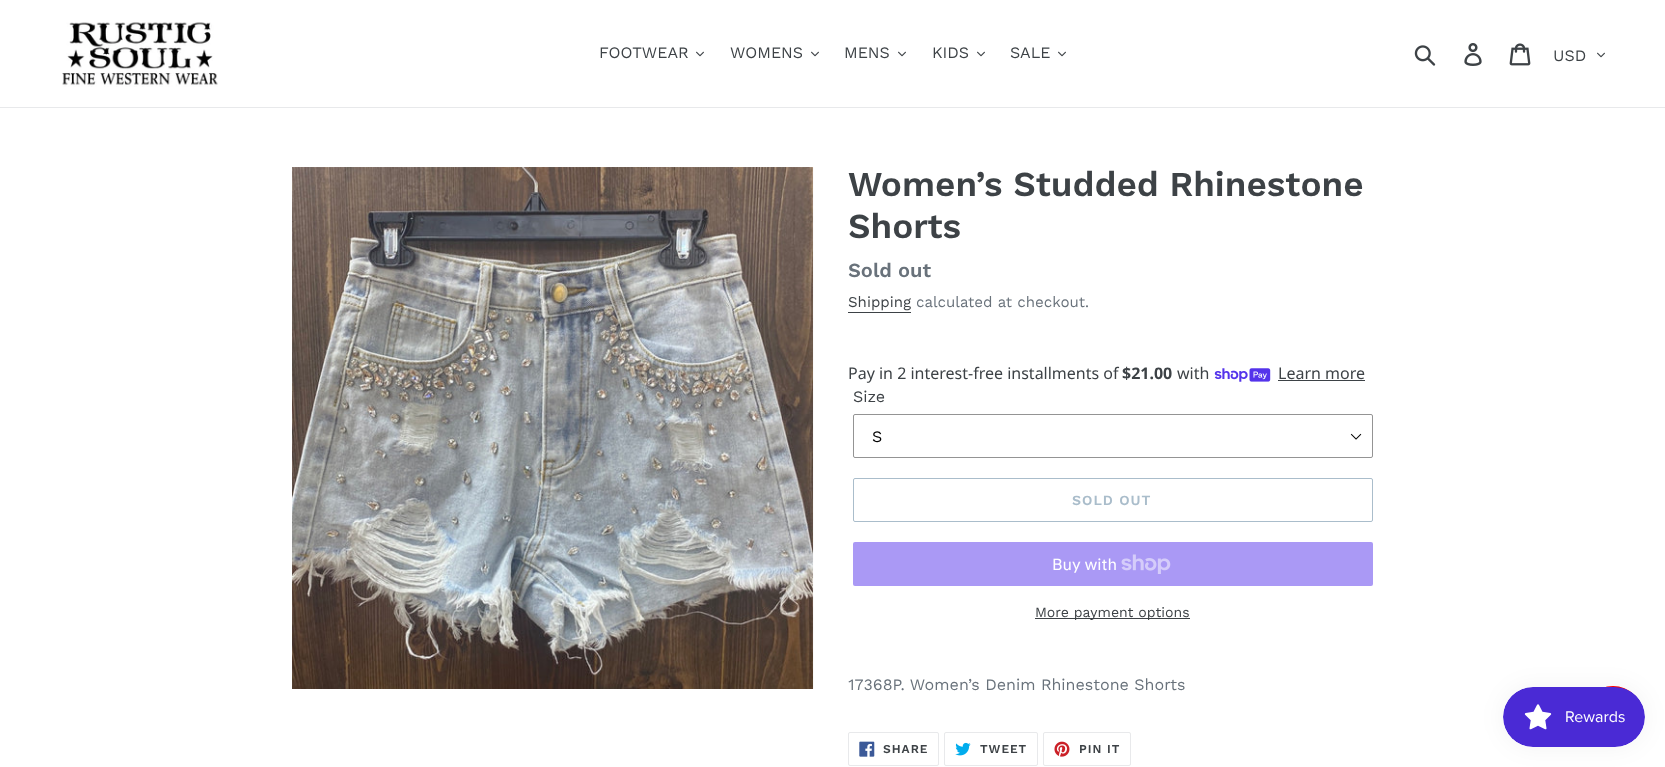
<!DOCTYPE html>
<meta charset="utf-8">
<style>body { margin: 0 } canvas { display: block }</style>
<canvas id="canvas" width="1665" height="767"></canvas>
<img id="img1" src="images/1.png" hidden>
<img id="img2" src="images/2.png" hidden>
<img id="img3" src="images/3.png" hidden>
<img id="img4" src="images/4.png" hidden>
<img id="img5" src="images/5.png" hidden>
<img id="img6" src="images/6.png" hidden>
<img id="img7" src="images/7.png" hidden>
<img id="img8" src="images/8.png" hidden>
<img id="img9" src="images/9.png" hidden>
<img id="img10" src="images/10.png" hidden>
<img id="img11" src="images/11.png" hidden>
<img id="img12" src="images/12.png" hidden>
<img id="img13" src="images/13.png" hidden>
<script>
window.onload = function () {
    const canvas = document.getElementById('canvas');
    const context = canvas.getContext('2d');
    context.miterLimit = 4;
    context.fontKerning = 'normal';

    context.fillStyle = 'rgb(255, 255, 255)';
    context.fillRect(0, 0, 1665, 767);
    context.fillStyle = 'rgb(232, 233, 235)';
    context.fillRect(0, 107, 1665, 1);
    context.drawImage(document.getElementById('img1'), 62, 22, 156, 65);
    context.drawImage(document.getElementById('img2'), 696, 51, 8, 6);
    context.drawImage(document.getElementById('img2'), 811, 51, 8, 6);
    context.drawImage(document.getElementById('img2'), 898, 51, 8, 6);
    context.drawImage(document.getElementById('img2'), 977, 51, 8, 6);
    context.drawImage(document.getElementById('img2'), 1058, 51, 8, 6);
    context.drawImage(document.getElementById('img3'), 1414, 45, 22, 21);
    context.drawImage(document.getElementById('img4'), 1464, 43, 18, 23);
    context.drawImage(document.getElementById('img5'), 1509, 43, 22, 23);
    context.drawImage(document.getElementById('img2'), 1597, 52, 8, 6);
    context.drawImage(document.getElementById('img6'), 292, 167, 522, 522);
    context.fillStyle = 'rgb(61, 66, 70)';
    context.fillRect(848, 312, 63, 1);
    context.drawImage(document.getElementById('img7'), 1214, 368, 57, 14);
    context.fillRect(1278, 380, 87, 1);
    context.drawImage(document.getElementById('img8'), 1350, 433, 12, 7);
    context.beginPath();
    context.roundRect(853.5, 414.5, 519, 43, 1.5);
    context.strokeStyle = 'rgb(148, 148, 148)';
    context.stroke();
    context.beginPath();
    context.roundRect(853.5, 478.5, 519, 43, 1.5);
    context.strokeStyle = 'rgb(170, 189, 203)';
    context.stroke();
    context.fillStyle = 'rgb(170, 153, 245)';
    context.beginPath();
    context.roundRect(853, 542, 520, 44, 2);
    context.fill();
    context.drawImage(document.getElementById('img9'), 1121, 554, 50, 20);
    context.fillStyle = 'rgb(61, 66, 70)';
    context.fillRect(1035, 618, 155, 1);
    context.beginPath();
    context.roundRect(848.5, 732.5, 90, 33, 1.5);
    context.strokeStyle = 'rgb(232, 233, 235)';
    context.stroke();
    context.drawImage(document.getElementById('img10'), 859, 741, 16, 16);
    context.beginPath();
    context.roundRect(944.5, 732.5, 93, 33, 1.5);
    context.stroke();
    context.drawImage(document.getElementById('img11'), 955, 742, 16, 14);
    context.beginPath();
    context.roundRect(1043.5, 732.5, 87, 33, 1.5);
    context.stroke();
    context.drawImage(document.getElementById('img12'), 1054, 741, 16, 16);
    context.fillStyle = 'rgb(255, 0, 0)';
    context.beginPath();
    context.arc(1613, 716, 30, 0, 2 * Math.PI);
    context.fill();
    context.fillStyle = 'rgba(0, 0, 0, 0.05)';
    context.filter = 'blur(12.5px)';
    context.beginPath();
    context.roundRect(1503, 687, 142, 60, 30);
    context.fill();
    context.filter = 'none';
    context.drawImage(document.getElementById('img13'), 1503, 687, 142, 60);
    context.font = '16px Work Sans';
    context.fillStyle = 'rgb(61, 66, 70)';
    context.fillText('FOOTWEAR', 599, 58);
    context.fillText('WOMENS', 730, 58);
    context.fillText('MENS', 844, 58);
    context.fillText('KIDS', 932, 58);
    context.fillText('SALE', 1010, 58);
    context.fillText('USD', 1553, 61);
    context.font = '600 35px Work Sans';
    context.fillText('Women’s Studded Rhinestone', 848, 196);
    context.fillText('Shorts', 848, 238);
    context.font = '600 20px Work Sans';
    context.fillStyle = 'rgb(105, 114, 123)';
    context.fillText('Sold out', 848, 277);
    context.font = '15px Work Sans';
    context.fillStyle = 'rgb(61, 66, 70)';
    context.fillText('Shipping', 848, 307);
    context.fillStyle = 'rgb(105, 114, 123)';
    context.fillText('calculated at checkout.', 916, 307);
    context.font = '16px Noto Sans';
    context.fillStyle = 'rgb(61, 66, 70)';
    context.fillText('Pay in 2 interest-free installments of', 848, 379);
    context.font = 'bold 16px Noto Sans';
    context.fillText('$21.00', 1122, 379);
    context.font = '16px Noto Sans';
    context.fillText('with', 1177, 379);
    context.fillText('Learn more', 1278, 379);
    context.font = '16px Work Sans';
    context.fillText('Size', 853, 402);
    context.fillStyle = 'rgb(0, 0, 0)';
    context.fillText('S', 872, 442);
    context.letterSpacing = '1px';
    context.font = '600 14px Work Sans';
    context.fillStyle = 'rgb(170, 189, 203)';
    context.fillText('SOLD OUT', 1072, 505);
    context.letterSpacing = '0px';
    context.font = '16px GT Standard';
    context.fillStyle = 'rgb(255, 255, 255)';
    context.fillText('Buy with', 1052, 570);
    context.font = '14px Work Sans';
    context.fillStyle = 'rgb(61, 66, 70)';
    context.fillText('More payment options', 1035, 617);
    context.font = '16px Work Sans';
    context.fillStyle = 'rgb(105, 114, 123)';
    context.fillText('17368P. Women’s Denim Rhinestone Shorts', 848, 690);
    context.letterSpacing = '1px';
    context.font = '600 12px Work Sans';
    context.fillStyle = 'rgb(61, 66, 70)';
    context.fillText('SHARE', 883, 753);
    context.fillText('TWEET', 980, 753);
    context.fillText('PIN IT', 1079, 753);
};
</script>
